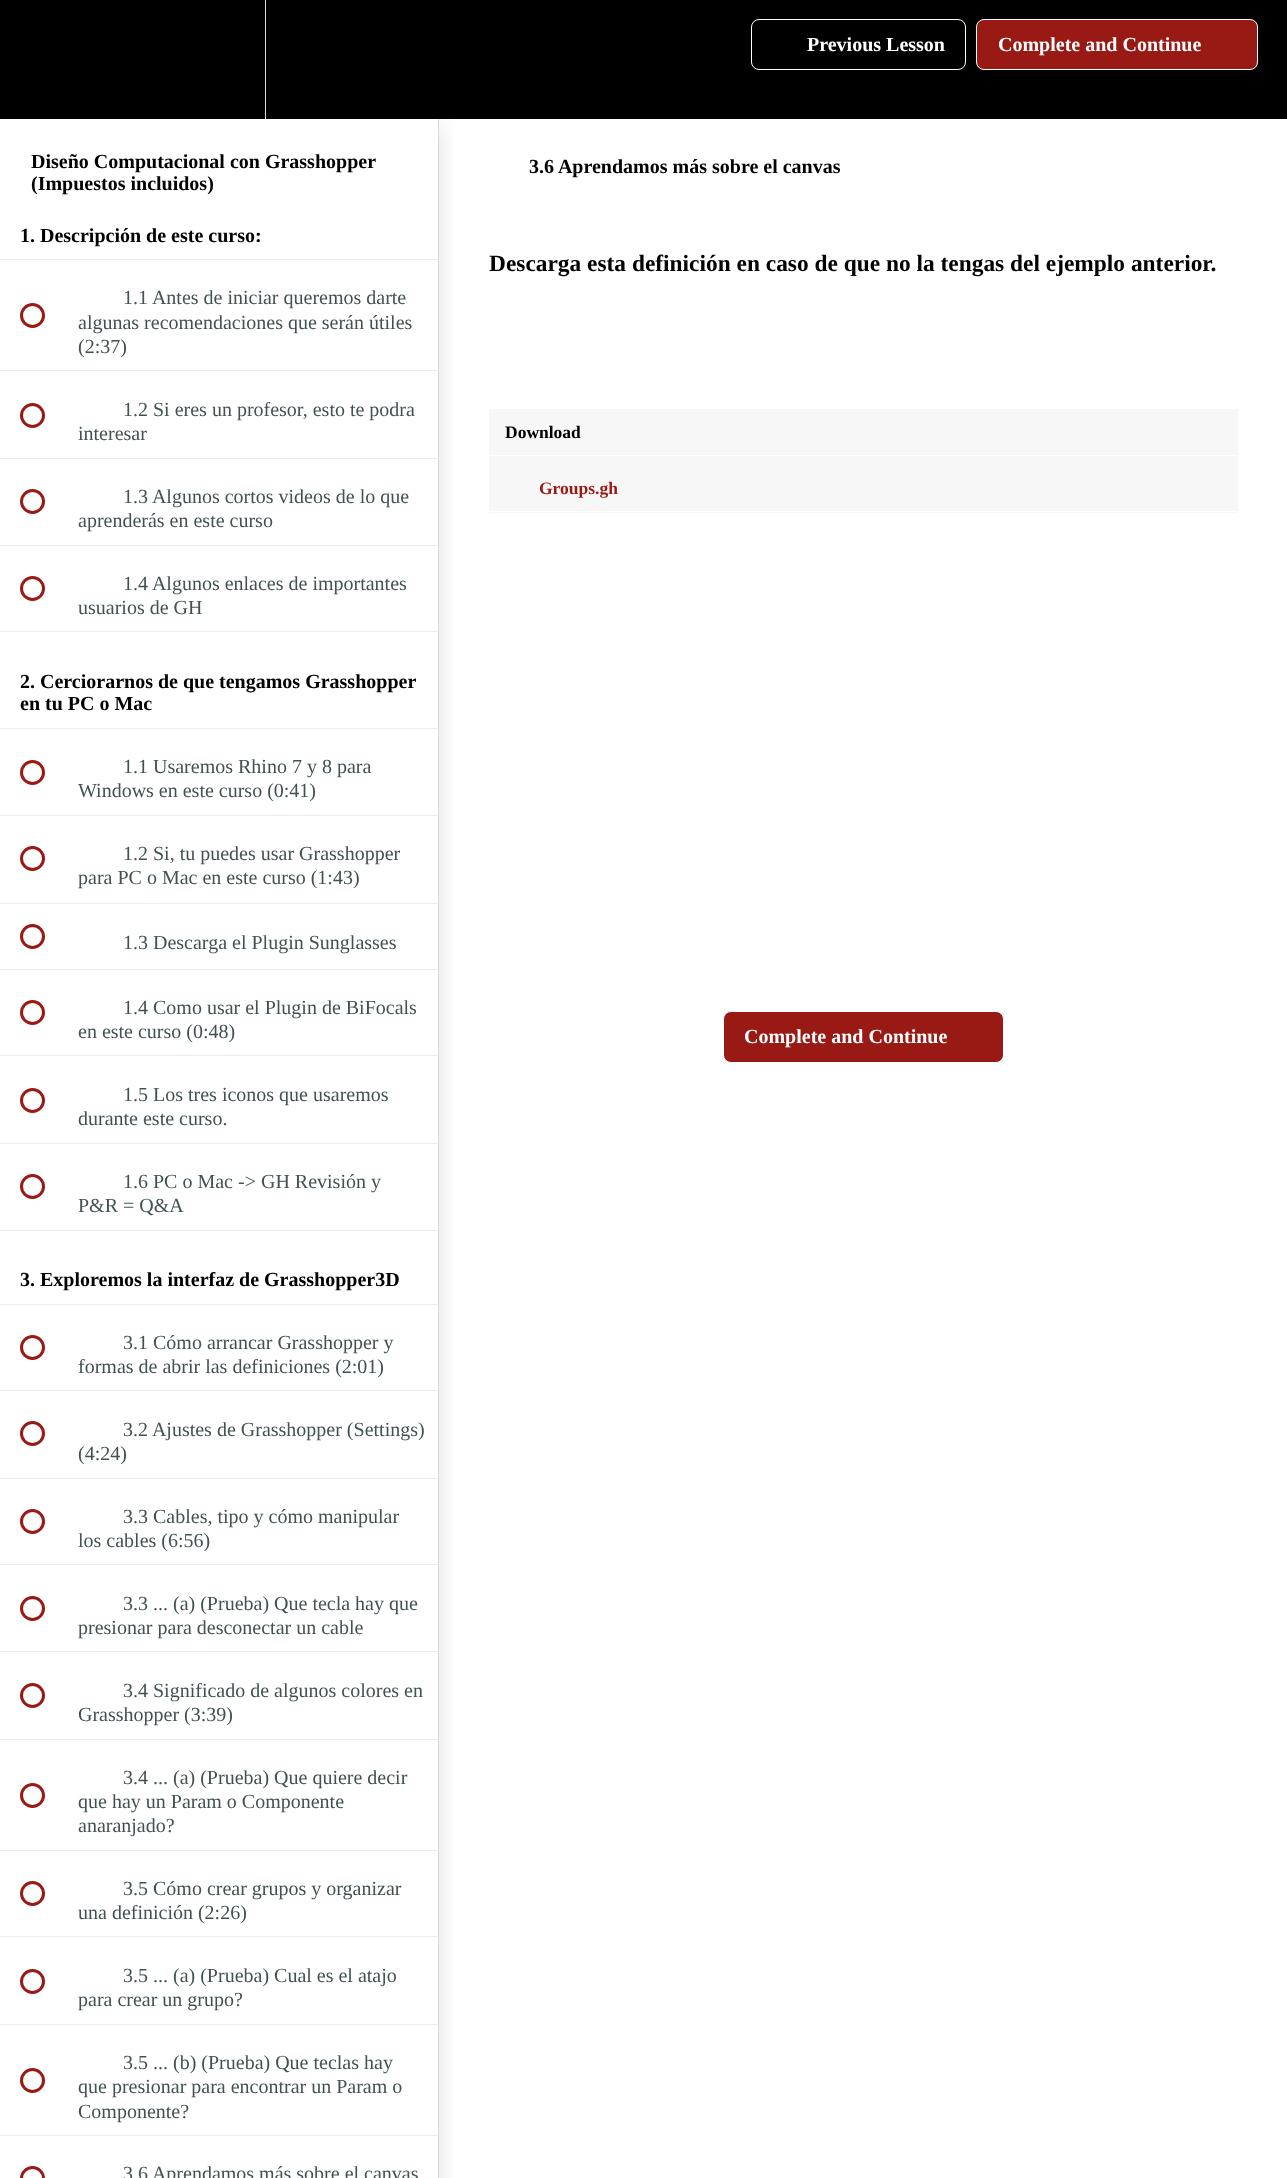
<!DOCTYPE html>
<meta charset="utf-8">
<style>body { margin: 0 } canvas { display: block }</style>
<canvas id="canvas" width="1287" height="2178"></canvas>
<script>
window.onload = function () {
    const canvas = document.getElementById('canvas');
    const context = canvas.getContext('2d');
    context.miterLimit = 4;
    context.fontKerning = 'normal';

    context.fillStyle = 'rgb(255, 255, 255)';
    context.fillRect(0, 0, 1287, 2178);
    context.save();
    context.beginPath();
    context.rect(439, 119, 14, 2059);
    context.clip();
    context.fillStyle = 'rgba(32, 39, 45, 0.15)';
    context.filter = 'blur(12.5px)';
    context.beginPath();
    context.rect(0, 126, 439, 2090);
    context.fill();
    context.filter = 'none';
    context.restore();
    context.fillStyle = 'rgb(0, 0, 0)';
    context.fillRect(0, 0, 1287, 119);
    context.fillStyle = 'rgb(215, 218, 219)';
    context.fillRect(265, 0, 1, 119);
    context.beginPath();
    context.roundRect(751.5, 19.5, 214, 50, 7.5);
    context.strokeStyle = 'rgb(255, 255, 255)';
    context.stroke();
    context.fillStyle = 'rgb(153, 25, 21)';
    context.beginPath();
    context.roundRect(976.5, 19.5, 281, 50, 7.5);
    context.fill();
    context.stroke();
    context.fillStyle = 'rgb(215, 218, 219)';
    context.fillRect(438, 119, 1, 2059);
    context.fillStyle = 'rgb(245, 232, 232)';
    context.fillRect(0, 259, 438, 1);
    context.fillRect(0, 370, 438, 1);
    context.beginPath();
    context.arc(32.5, 315.5, 11, 0, 2 * Math.PI);
    context.strokeStyle = 'rgb(153, 25, 21)';
    context.lineWidth = 3;
    context.stroke();
    context.fillRect(0, 458, 438, 1);
    context.beginPath();
    context.arc(32.5, 415.5, 11, 0, 2 * Math.PI);
    context.stroke();
    context.fillRect(0, 545, 438, 1);
    context.beginPath();
    context.arc(32.5, 501.5, 11, 0, 2 * Math.PI);
    context.stroke();
    context.fillRect(0, 631, 438, 1);
    context.beginPath();
    context.arc(32.5, 588.5, 11, 0, 2 * Math.PI);
    context.stroke();
    context.fillRect(0, 728, 438, 1);
    context.fillRect(0, 815, 438, 1);
    context.beginPath();
    context.arc(32.5, 772.5, 11, 0, 2 * Math.PI);
    context.stroke();
    context.fillRect(0, 903, 438, 1);
    context.beginPath();
    context.arc(32.5, 858.5, 11, 0, 2 * Math.PI);
    context.stroke();
    context.fillRect(0, 969, 438, 1);
    context.beginPath();
    context.arc(32.5, 936.5, 11, 0, 2 * Math.PI);
    context.stroke();
    context.fillRect(0, 1055, 438, 1);
    context.beginPath();
    context.arc(32.5, 1012.5, 11, 0, 2 * Math.PI);
    context.stroke();
    context.fillRect(0, 1143, 438, 1);
    context.beginPath();
    context.arc(32.5, 1100.5, 11, 0, 2 * Math.PI);
    context.stroke();
    context.fillRect(0, 1230, 438, 1);
    context.beginPath();
    context.arc(32.5, 1186.5, 11, 0, 2 * Math.PI);
    context.stroke();
    context.fillRect(0, 1304, 438, 1);
    context.fillRect(0, 1390, 438, 1);
    context.beginPath();
    context.arc(32.5, 1347.5, 11, 0, 2 * Math.PI);
    context.stroke();
    context.fillRect(0, 1478, 438, 1);
    context.beginPath();
    context.arc(32.5, 1433.5, 11, 0, 2 * Math.PI);
    context.stroke();
    context.fillRect(0, 1564, 438, 1);
    context.beginPath();
    context.arc(32.5, 1521.5, 11, 0, 2 * Math.PI);
    context.stroke();
    context.fillRect(0, 1651, 438, 1);
    context.beginPath();
    context.arc(32.5, 1608.5, 11, 0, 2 * Math.PI);
    context.stroke();
    context.fillRect(0, 1739, 438, 1);
    context.beginPath();
    context.arc(32.5, 1695.5, 11, 0, 2 * Math.PI);
    context.stroke();
    context.fillRect(0, 1850, 438, 1);
    context.beginPath();
    context.arc(32.5, 1795.5, 11, 0, 2 * Math.PI);
    context.stroke();
    context.fillRect(0, 1936, 438, 1);
    context.beginPath();
    context.arc(32.5, 1893.5, 11, 0, 2 * Math.PI);
    context.stroke();
    context.fillRect(0, 2024, 438, 1);
    context.beginPath();
    context.arc(32.5, 1981.5, 11, 0, 2 * Math.PI);
    context.stroke();
    context.fillRect(0, 2135, 438, 1);
    context.beginPath();
    context.arc(32.5, 2080.5, 11, 0, 2 * Math.PI);
    context.stroke();
    context.beginPath();
    context.arc(32.5, 2178.5, 11, 0, 2 * Math.PI);
    context.stroke();
    context.fillStyle = 'rgb(247, 247, 247)';
    context.fillRect(489, 409, 749, 46);
    context.fillRect(489, 456, 749, 57);
    context.fillStyle = 'rgb(255, 255, 255)';
    context.fillRect(489, 511, 749, 1);
    context.fillStyle = 'rgb(153, 25, 21)';
    context.beginPath();
    context.roundRect(723.5, 1011.5, 280, 51, 7.5);
    context.fill();
    context.strokeStyle = 'rgb(255, 255, 255)';
    context.lineWidth = 1;
    context.stroke();
    context.font = 'bold 20px Liberation Serif';
    context.fillStyle = 'rgb(255, 255, 255)';
    context.fillText('Previous Lesson', 807, 51);
    context.fillText('Complete and Continue', 998, 51);
    context.fillStyle = 'rgb(0, 0, 0)';
    context.fillText('Diseño Computacional con Grasshopper', 31, 168);
    context.fillText('(Impuestos incluidos)', 31, 190);
    context.fillText('1. Descripción de este curso:', 20, 242);
    context.font = '20px Liberation Serif';
    context.fillStyle = 'rgb(66, 82, 82)';
    context.fillText('1.1 Antes de iniciar queremos darte', 123, 304);
    context.fillText('algunas recomendaciones que serán útiles', 78, 329);
    context.fillText('(2:37)', 78, 353);
    context.fillText('1.2 Si eres un profesor, esto te podra', 123, 416);
    context.fillText('interesar', 78, 440);
    context.fillText('1.3 Algunos cortos videos de lo que', 123, 503);
    context.fillText('aprenderás en este curso', 78, 527);
    context.fillText('1.4 Algunos enlaces de importantes', 123, 590);
    context.fillText('usuarios de GH', 78, 614);
    context.font = 'bold 20px Liberation Serif';
    context.fillStyle = 'rgb(0, 0, 0)';
    context.fillText('2. Cerciorarnos de que tengamos Grasshopper', 20, 688);
    context.fillText('en tu PC o Mac', 20, 710);
    context.font = '20px Liberation Serif';
    context.fillStyle = 'rgb(66, 82, 82)';
    context.fillText('1.1 Usaremos Rhino 7 y 8 para', 123, 773);
    context.fillText('Windows en este curso (0:41)', 78, 797);
    context.fillText('1.2 Si, tu puedes usar Grasshopper', 123, 860);
    context.fillText('para PC o Mac en este curso (1:43)', 78, 884);
    context.fillText('1.3 Descarga el Plugin Sunglasses', 123, 949);
    context.fillText('1.4 Como usar el Plugin de BiFocals', 123, 1014);
    context.fillText('en este curso (0:48)', 78, 1038);
    context.fillText('1.5 Los tres iconos que usaremos', 123, 1101);
    context.fillText('durante este curso.', 78, 1125);
    context.fillText('1.6 PC o Mac -> GH Revisión y', 123, 1188);
    context.fillText('P&R = Q&A', 78, 1212);
    context.font = 'bold 20px Liberation Serif';
    context.fillStyle = 'rgb(0, 0, 0)';
    context.fillText('3. Exploremos la interfaz de Grasshopper3D', 20, 1286);
    context.font = '20px Liberation Serif';
    context.fillStyle = 'rgb(66, 82, 82)';
    context.fillText('3.1 Cómo arrancar Grasshopper y', 123, 1349);
    context.fillText('formas de abrir las definiciones (2:01)', 78, 1373);
    context.fillText('3.2 Ajustes de Grasshopper (Settings)', 123, 1436);
    context.fillText('(4:24)', 78, 1460);
    context.fillText('3.3 Cables, tipo y cómo manipular', 123, 1523);
    context.fillText('los cables (6:56)', 78, 1547);
    context.fillText('3.3 ... (a) (Prueba) Que tecla hay que', 123, 1610);
    context.fillText('presionar para desconectar un cable', 78, 1634);
    context.fillText('3.4 Significado de algunos colores en', 123, 1697);
    context.fillText('Grasshopper (3:39)', 78, 1721);
    context.fillText('3.4 ... (a) (Prueba) Que quiere decir', 123, 1784);
    context.fillText('que hay un Param o Componente', 78, 1808);
    context.fillText('anaranjado?', 78, 1832);
    context.fillText('3.5 Cómo crear grupos y organizar', 123, 1895);
    context.fillText('una definición (2:26)', 78, 1919);
    context.fillText('3.5 ... (a) (Prueba) Cual es el atajo', 123, 1982);
    context.fillText('para crear un grupo?', 78, 2006);
    context.fillText('3.5 ... (b) (Prueba) Que teclas hay', 123, 2069);
    context.fillText('que presionar para encontrar un Param o', 78, 2093);
    context.fillText('Componente?', 78, 2118);
    context.fillText('3.6 Aprendamos más sobre el canvas', 123, 2180);
    context.font = 'bold 20px Liberation Serif';
    context.fillStyle = 'rgb(0, 0, 0)';
    context.fillText('3.6 Aprendamos más sobre el canvas', 529, 173);
    context.font = 'bold 23.4px Liberation Serif';
    context.fillText('Descarga esta definición en caso de que no la tengas del ejemplo anterior.', 489, 271);
    context.font = 'bold 17.5px Liberation Serif';
    context.fillText('Download', 505, 438);
    context.fillStyle = 'rgb(153, 25, 21)';
    context.fillText('Groups.gh', 539, 494);
    context.font = 'bold 20px Liberation Serif';
    context.fillStyle = 'rgb(255, 255, 255)';
    context.fillText('Complete and Continue', 744, 1043);
};
</script>
